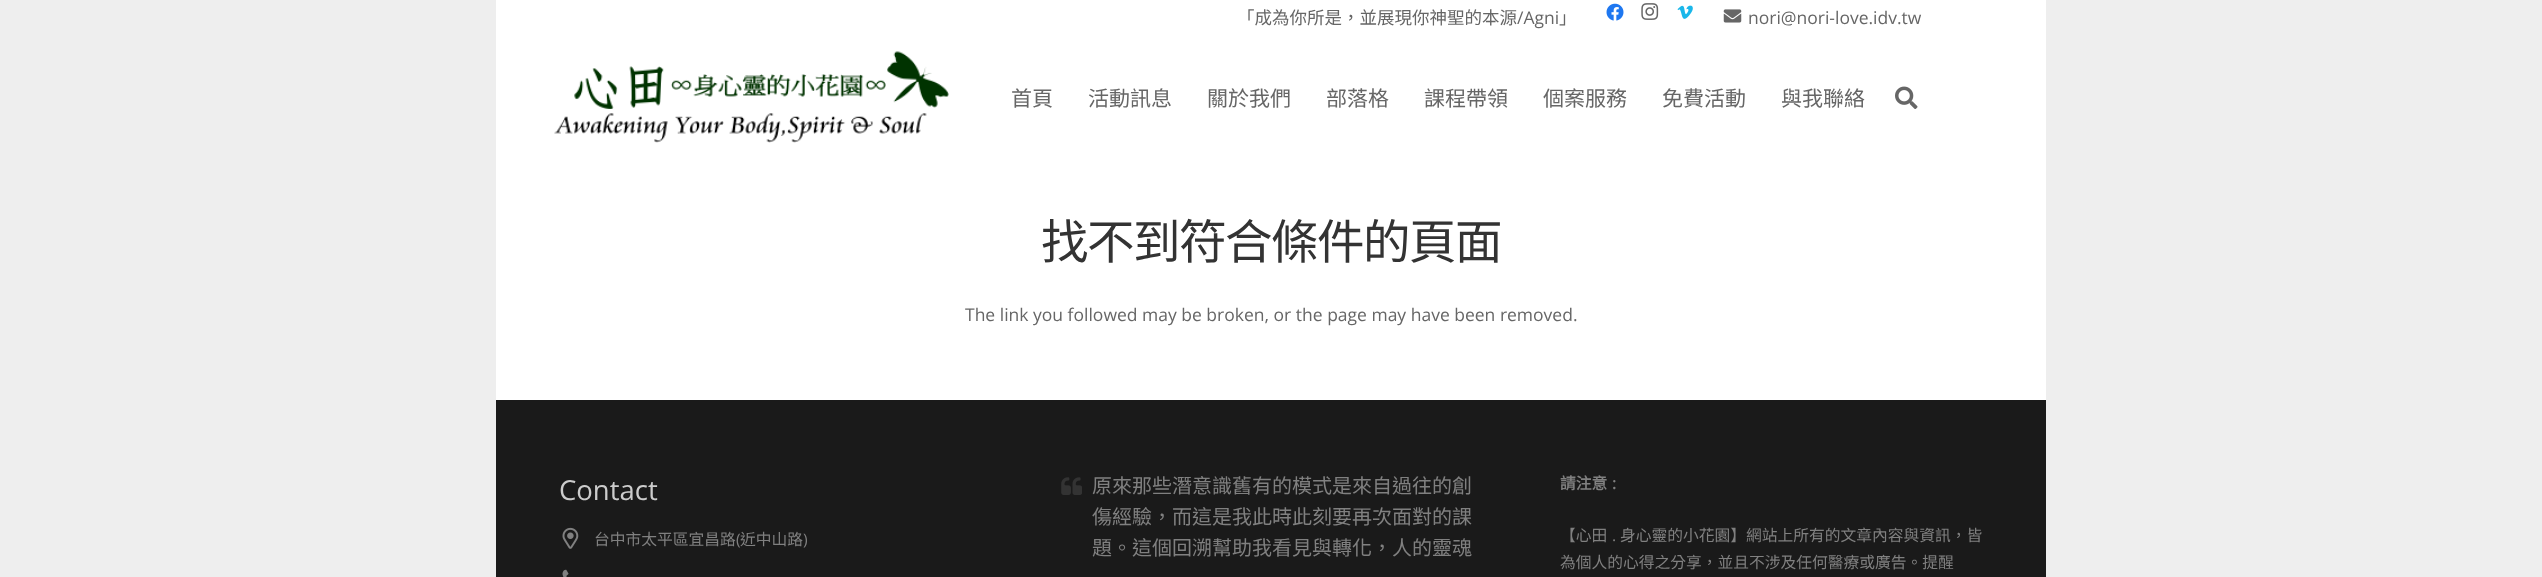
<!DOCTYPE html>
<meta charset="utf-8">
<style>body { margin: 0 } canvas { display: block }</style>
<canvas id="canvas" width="2542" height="577"></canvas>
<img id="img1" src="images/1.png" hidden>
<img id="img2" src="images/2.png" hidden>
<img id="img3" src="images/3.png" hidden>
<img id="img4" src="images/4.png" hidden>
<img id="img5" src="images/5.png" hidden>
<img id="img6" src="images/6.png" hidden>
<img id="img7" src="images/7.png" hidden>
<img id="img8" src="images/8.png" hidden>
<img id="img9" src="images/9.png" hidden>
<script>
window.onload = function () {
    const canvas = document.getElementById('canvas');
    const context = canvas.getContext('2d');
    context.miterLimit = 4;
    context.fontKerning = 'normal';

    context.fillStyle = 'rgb(238, 238, 238)';
    context.fillRect(0, 0, 2542, 577);
    context.fillStyle = 'rgb(255, 255, 255)';
    context.fillRect(496, 0, 1550, 400);
    context.drawImage(document.getElementById('img1'), 1606, 3, 18, 18);
    context.drawImage(document.getElementById('img2'), 1641, 3, 18, 17);
    context.drawImage(document.getElementById('img3'), 1677, 5, 16, 14);
    context.drawImage(document.getElementById('img4'), 1723, 9, 19, 14);
    context.drawImage(document.getElementById('img5'), 554, 51, 395, 92);
    context.drawImage(document.getElementById('img6'), 1895, 86, 23, 23);
    context.fillStyle = 'rgb(26, 26, 26)';
    context.fillRect(496, 400, 1550, 177);
    context.drawImage(document.getElementById('img7'), 562, 527, 17, 22);
    context.drawImage(document.getElementById('img8'), 562, 569, 7, 8);
    context.drawImage(document.getElementById('img9'), 1061, 477, 21, 18);
    context.font = '17.5px Noto Sans CJK TC';
    context.fillStyle = 'rgb(102, 102, 102)';
    context.fillText('「成為你所是，並展現你神聖的本源', 1237, 24);
    context.font = '17.5px Open Sans';
    context.fillText('/Agni', 1517, 24);
    context.font = '17.5px Noto Sans CJK TC';
    context.fillText('」', 1559, 24);
    context.font = '17.5px Open Sans';
    context.fillText('nori@nori-love.idv.tw', 1748, 24);
    context.font = '21px Noto Sans CJK TC';
    context.fillText('首頁', 1011, 106);
    context.fillText('活動訊息', 1088, 106);
    context.fillText('關於我們', 1207, 106);
    context.fillText('部落格', 1326, 106);
    context.fillText('課程帶領', 1424, 106);
    context.fillText('個案服務', 1543, 106);
    context.fillText('免費活動', 1662, 106);
    context.fillText('與我聯絡', 1781, 106);
    context.letterSpacing = '-1.5px';
    context.font = '47.5px Noto Sans CJK TC';
    context.fillStyle = 'rgb(51, 51, 51)';
    context.fillText('找不到符合條件的頁面', 1041, 259);
    context.letterSpacing = '0px';
    context.font = '17.5px Open Sans';
    context.fillStyle = 'rgb(102, 102, 102)';
    context.fillText('The link you followed may be broken, or the page may have been removed.', 965, 321);
    context.font = '27.5px Open Sans';
    context.fillStyle = 'rgb(204, 204, 204)';
    context.fillText('Contact', 559, 500);
    context.font = '15.75px Noto Sans CJK TC';
    context.fillStyle = 'rgb(128, 128, 128)';
    context.fillText('台中市太平區宜昌路', 594, 545);
    context.font = '15.75px Open Sans';
    context.fillText('(', 736, 545);
    context.font = '15.75px Noto Sans CJK TC';
    context.fillText('近中山路', 740, 545);
    context.font = '15.75px Open Sans';
    context.fillText(')', 803, 545);
    context.font = '20px Noto Sans CJK TC';
    context.fillText('原來那些潛意識舊有的模式是來自過往的創', 1092, 493);
    context.fillText('傷經驗，而這是我此時此刻要再次面對的課', 1092, 524);
    context.fillText('題。這個回溯幫助我看見與轉化，人的靈魂', 1092, 555);
    context.font = 'bold 15.75px Noto Sans CJK TC';
    context.fillText('請注意', 1560, 489);
    context.font = 'bold 15.75px Open Sans';
    context.fillText(':', 1612, 489);
    context.font = '15.75px Noto Sans CJK TC';
    context.fillText('【心田', 1560, 541);
    context.font = '15.75px Open Sans';
    context.fillText('.', 1612, 541);
    context.font = '15.75px Noto Sans CJK TC';
    context.fillText('身心靈的小花園】網站上所有的文章內容與資訊，皆', 1620, 541);
    context.fillText('為個人的心得之分享，並且不涉及任何醫療或廣告。提醒', 1560, 568);
};
</script>
